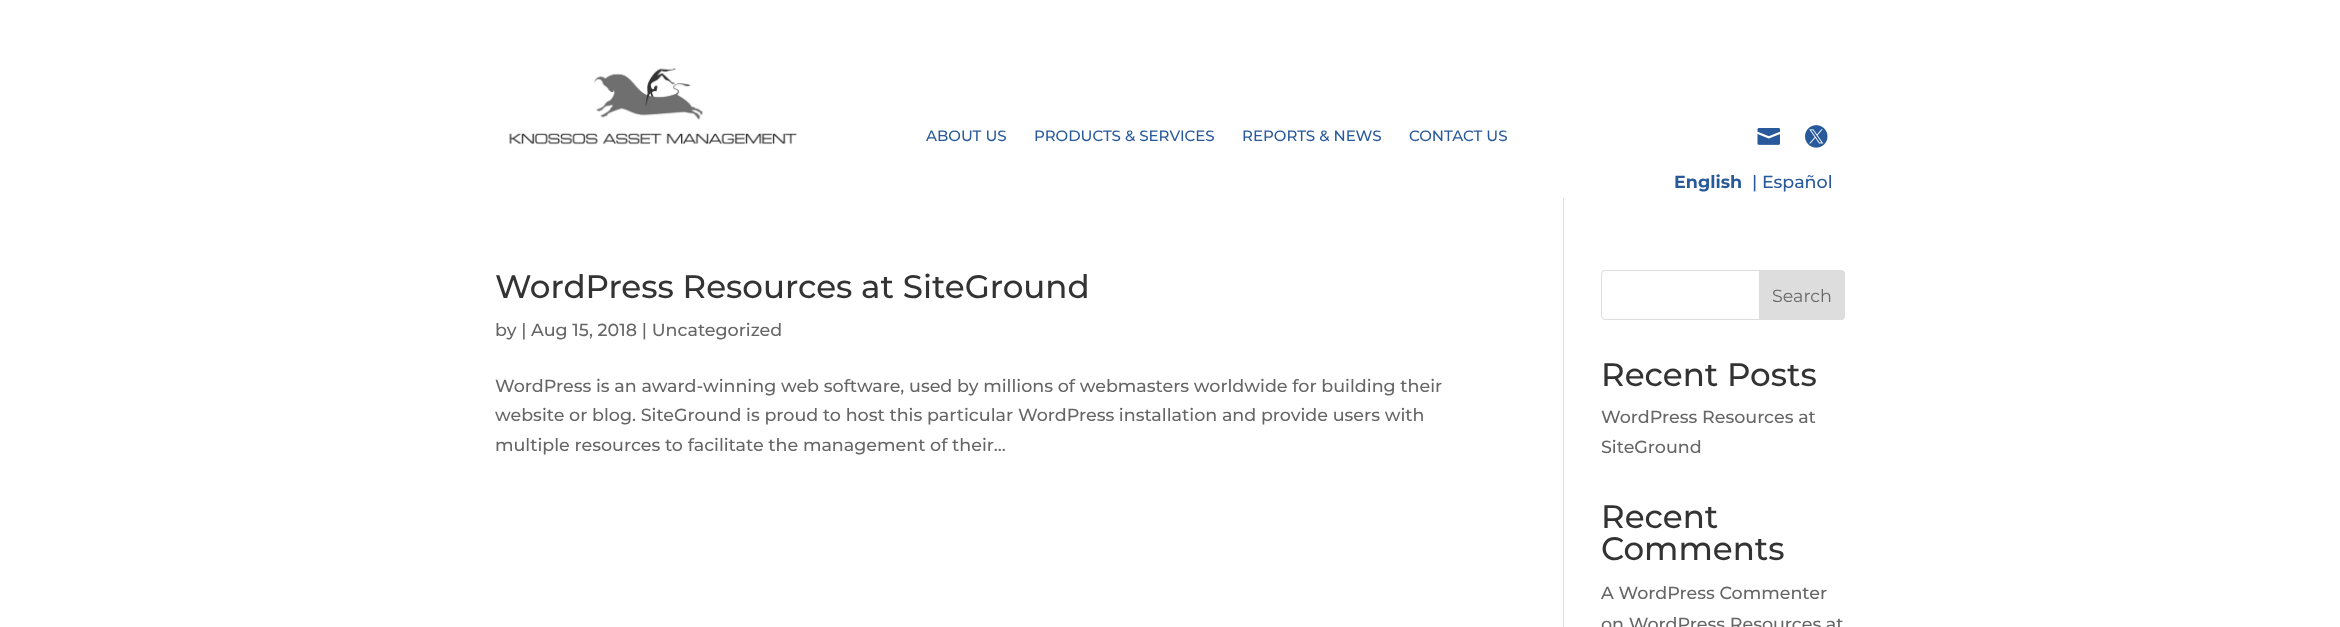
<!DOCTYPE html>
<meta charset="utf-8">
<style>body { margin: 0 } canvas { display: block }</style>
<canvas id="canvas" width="2340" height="627"></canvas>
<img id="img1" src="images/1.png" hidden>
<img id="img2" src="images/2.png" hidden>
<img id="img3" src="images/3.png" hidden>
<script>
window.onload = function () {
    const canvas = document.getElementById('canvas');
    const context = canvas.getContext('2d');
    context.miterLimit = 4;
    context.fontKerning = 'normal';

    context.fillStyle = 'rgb(255, 255, 255)';
    context.fillRect(0, 0, 2340, 627);
    context.drawImage(document.getElementById('img1'), 509, 68, 288, 77);
    context.drawImage(document.getElementById('img2'), 1757, 128, 23, 17);
    context.drawImage(document.getElementById('img3'), 1805, 125, 23, 23);
    context.fillStyle = 'rgb(226, 226, 226)';
    context.fillRect(1563, 198, 1, 429);
    context.beginPath();
    context.roundRect(1601.5, 270.5, 243, 49, 3.5);
    context.strokeStyle = 'rgb(221, 221, 221)';
    context.stroke();
    context.fillStyle = 'rgb(221, 221, 221)';
    context.beginPath();
    context.roundRect(1759.5, 270.5, 85, 49, [0, 3.5, 3.5, 0]);
    context.fill();
    context.stroke();
    context.font = '500 15px Montserrat';
    context.fillStyle = 'rgb(39, 89, 155)';
    context.fillText('ABOUT US', 926, 141);
    context.fillText('PRODUCTS & SERVICES', 1034, 141);
    context.fillText('REPORTS & NEWS', 1242, 141);
    context.fillText('CONTACT US', 1409, 141);
    context.font = 'bold 17.5px Montserrat';
    context.fillText('English', 1674, 188);
    context.font = '500 17.5px Montserrat';
    context.fillText('| Español', 1752, 188);
    context.font = '500 32.5px Montserrat';
    context.fillStyle = 'rgb(51, 51, 51)';
    context.fillText('WordPress Resources at SiteGround', 495, 298);
    context.font = '500 17.5px Montserrat';
    context.fillStyle = 'rgb(102, 102, 102)';
    context.fillText('by | Aug 15, 2018 | Uncategorized', 495, 336);
    context.fillText('WordPress is an award-winning web software, used by millions of webmasters worldwide for building their', 495, 392);
    context.fillText('website or blog. SiteGround is proud to host this particular WordPress installation and provide users with', 495, 421);
    context.fillText('multiple resources to facilitate the management of their...', 495, 451);
    context.font = '17.5px Montserrat';
    context.fillText('Search', 1772, 302);
    context.font = '500 32.5px Montserrat';
    context.fillStyle = 'rgb(51, 51, 51)';
    context.fillText('Recent Posts', 1601, 386);
    context.font = '500 17.5px Montserrat';
    context.fillStyle = 'rgb(102, 102, 102)';
    context.fillText('WordPress Resources at', 1601, 423);
    context.fillText('SiteGround', 1601, 453);
    context.font = '500 32.5px Montserrat';
    context.fillStyle = 'rgb(51, 51, 51)';
    context.fillText('Recent', 1601, 528);
    context.fillText('Comments', 1601, 560);
    context.font = '500 17.5px Montserrat';
    context.fillStyle = 'rgb(102, 102, 102)';
    context.fillText('A WordPress Commenter', 1601, 599);
    context.fillText('on WordPress Resources at', 1601, 630);
};
</script>
